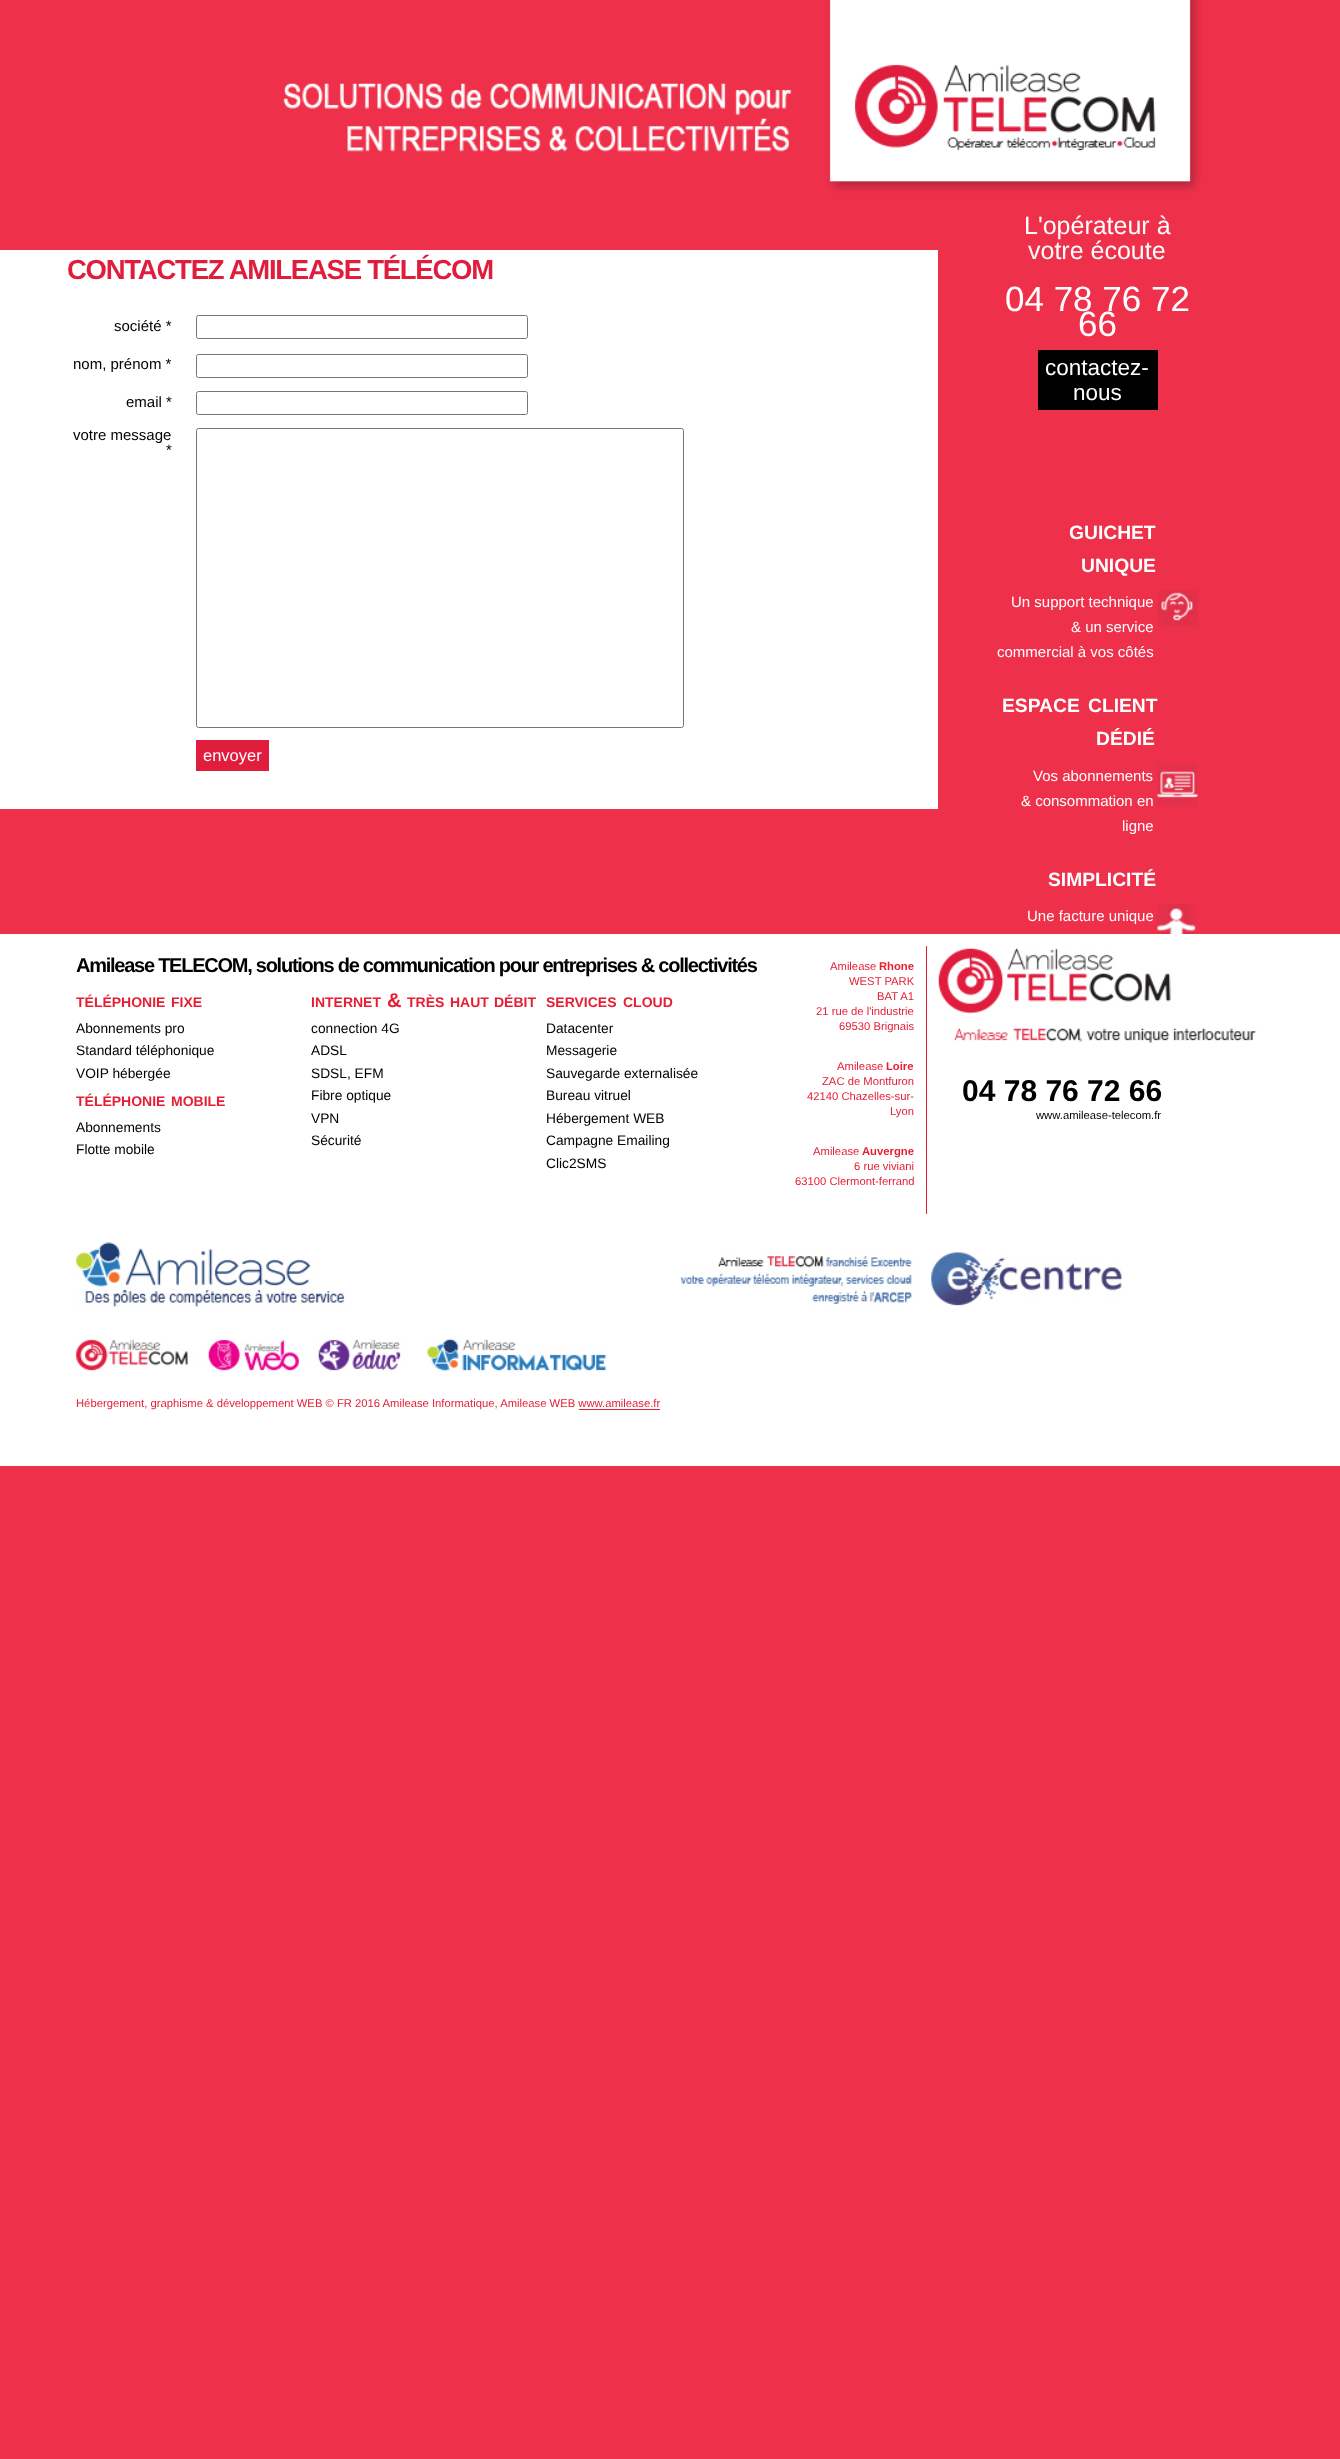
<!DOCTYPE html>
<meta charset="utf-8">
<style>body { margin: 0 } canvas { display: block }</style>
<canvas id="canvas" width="1340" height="2459"></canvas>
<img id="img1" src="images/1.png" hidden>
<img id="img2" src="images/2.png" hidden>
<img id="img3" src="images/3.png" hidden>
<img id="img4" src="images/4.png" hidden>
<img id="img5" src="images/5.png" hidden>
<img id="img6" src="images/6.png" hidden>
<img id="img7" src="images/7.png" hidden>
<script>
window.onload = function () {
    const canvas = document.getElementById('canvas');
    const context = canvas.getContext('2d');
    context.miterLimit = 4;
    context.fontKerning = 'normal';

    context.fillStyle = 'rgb(239, 48, 74)';
    context.fillRect(0, 0, 1340, 2459);
    context.drawImage(document.getElementById('img1'), 283, 0, 918, 193);
    context.fillStyle = 'rgb(255, 255, 255)';
    context.fillRect(0, 250, 938, 559);
    context.beginPath();
    context.roundRect(196.5, 315.5, 331, 23, 2);
    context.strokeStyle = 'rgb(118, 118, 118)';
    context.stroke();
    context.beginPath();
    context.roundRect(196.5, 354.5, 331, 23, 2);
    context.stroke();
    context.beginPath();
    context.roundRect(196.5, 391.5, 331, 23, 2);
    context.stroke();
    context.beginPath();
    context.roundRect(196.5, 428.5, 487, 299, 2);
    context.stroke();
    context.fillStyle = 'rgb(224, 29, 61)';
    context.fillRect(196, 740, 73, 31);
    context.fillStyle = 'rgb(0, 0, 0)';
    context.fillRect(1038, 350, 120, 60);
    context.drawImage(document.getElementById('img2'), 1157, 590, 41, 37);
    context.drawImage(document.getElementById('img3'), 1157, 764, 42, 43);
    context.drawImage(document.getElementById('img4'), 1157, 904, 39, 30);
    context.fillStyle = 'rgb(255, 255, 255)';
    context.fillRect(0, 934, 1340, 532);
    context.fillStyle = 'rgb(230, 30, 52)';
    context.fillRect(926, 946, 1, 268);
    context.drawImage(document.getElementById('img5'), 938, 948, 319, 95);
    context.drawImage(document.getElementById('img6'), 680, 1252, 442, 54);
    context.drawImage(document.getElementById('img7'), 76, 1242, 531, 130);
    context.fillRect(579, 1409, 81, 1);
    context.letterSpacing = '-1.25px';
    context.font = 'bold 27.5px Liberation Sans';
    context.fillStyle = 'rgb(224, 29, 61)';
    context.fillText('CONTACTEZ AMILEASE TÉLÉCOM', 67, 279);
    context.letterSpacing = '0px';
    context.font = '15px Liberation Sans';
    context.fillStyle = 'rgb(0, 0, 0)';
    context.fillText('société *', 114, 331);
    context.fillText('nom, prénom *', 73, 369);
    context.fillText('email *', 126, 407);
    context.fillText('votre message', 73, 440);
    context.fillText('*', 166, 455);
    context.font = '16.5px Liberation Sans';
    context.fillStyle = 'rgb(255, 255, 255)';
    context.fillText('envoyer', 203, 761);
    context.font = '25px Liberation Sans';
    context.fillText('L\'opérateur à', 1024, 234);
    context.fillText('votre écoute', 1028, 259);
    context.font = '35px Liberation Sans';
    context.fillText('04 78 76 72', 1005, 311);
    context.fillText('66', 1078, 336);
    context.font = '22.5px Liberation Sans';
    context.fillText('contactez-', 1045, 375);
    context.fillText('nous', 1073, 400);
    context.font = 'bold 19.25px Liberation Sans';
    context.fillText('GUICHET', 1069, 539);
    context.fillText('UNIQUE', 1081, 572);
    context.font = '15px Liberation Sans';
    context.fillText('Un support technique', 1011, 607);
    context.fillText('& un service', 1071, 632);
    context.fillText('commercial à vos côtés', 997, 657);
    context.font = 'bold 19.25px Liberation Sans';
    context.fillText('ESPACE', 1002, 712);
    context.fillText('CLIENT', 1088, 712);
    context.fillText('DÉDIÉ', 1096, 745);
    context.font = '15px Liberation Sans';
    context.fillText('Vos abonnements', 1033, 781);
    context.fillText('& consommation en', 1021, 806);
    context.fillText('ligne', 1122, 831);
    context.font = 'bold 19.25px Liberation Sans';
    context.fillText('SIMPLICITÉ', 1048, 886);
    context.font = '15px Liberation Sans';
    context.fillText('Une facture unique', 1027, 921);
    context.letterSpacing = '-1.25px';
    context.font = 'bold 20px Liberation Sans';
    context.fillStyle = 'rgb(0, 0, 0)';
    context.fillText('Amilease TELECOM, solutions de communication pour entreprises & collectivités', 76, 972);
    context.letterSpacing = '0px';
    context.font = 'bold 14px Liberation Sans';
    context.fillStyle = 'rgb(230, 30, 52)';
    context.fillText('TÉLÉPHONIE', 76, 1007);
    context.fillText('FIXE', 171, 1007);
    context.font = '13.75px Liberation Sans';
    context.fillStyle = 'rgb(0, 0, 0)';
    context.fillText('Abonnements pro', 76, 1033);
    context.fillText('Standard téléphonique', 76, 1055);
    context.fillText('VOIP hébergée', 76, 1078);
    context.font = 'bold 14px Liberation Sans';
    context.fillStyle = 'rgb(230, 30, 52)';
    context.fillText('TÉLÉPHONIE', 76, 1106);
    context.fillText('MOBILE', 171, 1106);
    context.font = '13.75px Liberation Sans';
    context.fillStyle = 'rgb(0, 0, 0)';
    context.fillText('Abonnements', 76, 1132);
    context.fillText('Flotte mobile', 76, 1154);
    context.font = 'bold 14px Liberation Sans';
    context.fillStyle = 'rgb(230, 30, 52)';
    context.fillText('INTERNET', 311, 1007);
    context.font = 'bold 20px Liberation Sans';
    context.fillText('&', 387, 1007);
    context.font = 'bold 14px Liberation Sans';
    context.fillText('TRÈS', 407, 1007);
    context.fillText('HAUT', 450, 1007);
    context.fillText('DÉBIT', 494, 1007);
    context.font = '13.75px Liberation Sans';
    context.fillStyle = 'rgb(0, 0, 0)';
    context.fillText('connection 4G', 311, 1033);
    context.fillText('ADSL', 311, 1055);
    context.fillText('SDSL, EFM', 311, 1078);
    context.fillText('Fibre optique', 311, 1100);
    context.fillText('VPN', 311, 1123);
    context.fillText('Sécurité', 311, 1145);
    context.font = 'bold 14px Liberation Sans';
    context.fillStyle = 'rgb(230, 30, 52)';
    context.fillText('SERVICES', 546, 1007);
    context.fillText('CLOUD', 623, 1007);
    context.font = '13.75px Liberation Sans';
    context.fillStyle = 'rgb(0, 0, 0)';
    context.fillText('Datacenter', 546, 1033);
    context.fillText('Messagerie', 546, 1055);
    context.fillText('Sauvegarde externalisée', 546, 1078);
    context.fillText('Bureau vitruel', 546, 1100);
    context.fillText('Hébergement WEB', 546, 1123);
    context.fillText('Campagne Emailing', 546, 1145);
    context.fillText('Clic2SMS', 546, 1168);
    context.font = '11.25px Liberation Sans';
    context.fillStyle = 'rgb(230, 30, 52)';
    context.fillText('Amilease', 830, 970);
    context.font = 'bold 11.25px Liberation Sans';
    context.fillText('Rhone', 879, 970);
    context.font = '11.25px Liberation Sans';
    context.fillText('WEST PARK', 849, 985);
    context.fillText('BAT A1', 877, 1000);
    context.fillText('21 rue de l\'industrie', 816, 1015);
    context.fillText('69530 Brignais', 839, 1030);
    context.fillText('Amilease', 837, 1070);
    context.font = 'bold 11.25px Liberation Sans';
    context.fillText('Loire', 886, 1070);
    context.font = '11.25px Liberation Sans';
    context.fillText('ZAC de Montfuron', 822, 1085);
    context.fillText('42140 Chazelles-sur-', 807, 1100);
    context.fillText('Lyon', 890, 1115);
    context.fillText('Amilease', 813, 1155);
    context.font = 'bold 11.25px Liberation Sans';
    context.fillText('Auvergne', 862, 1155);
    context.font = '11.25px Liberation Sans';
    context.fillText('6 rue viviani', 854, 1170);
    context.fillText('63100 Clermont-ferrand', 795, 1185);
    context.font = 'bold 30px Liberation Sans';
    context.fillStyle = 'rgb(0, 0, 0)';
    context.fillText('04 78 76 72 66', 962, 1101);
    context.font = '11.25px Liberation Sans';
    context.fillText('www.amilease-telecom.fr', 1036, 1119);
    context.fillStyle = 'rgb(230, 30, 52)';
    context.fillText('Hébergement, graphisme & développement WEB © FR 2016 Amilease Informatique, Amilease WEB www.amilease.fr', 76, 1407);
};
</script>
